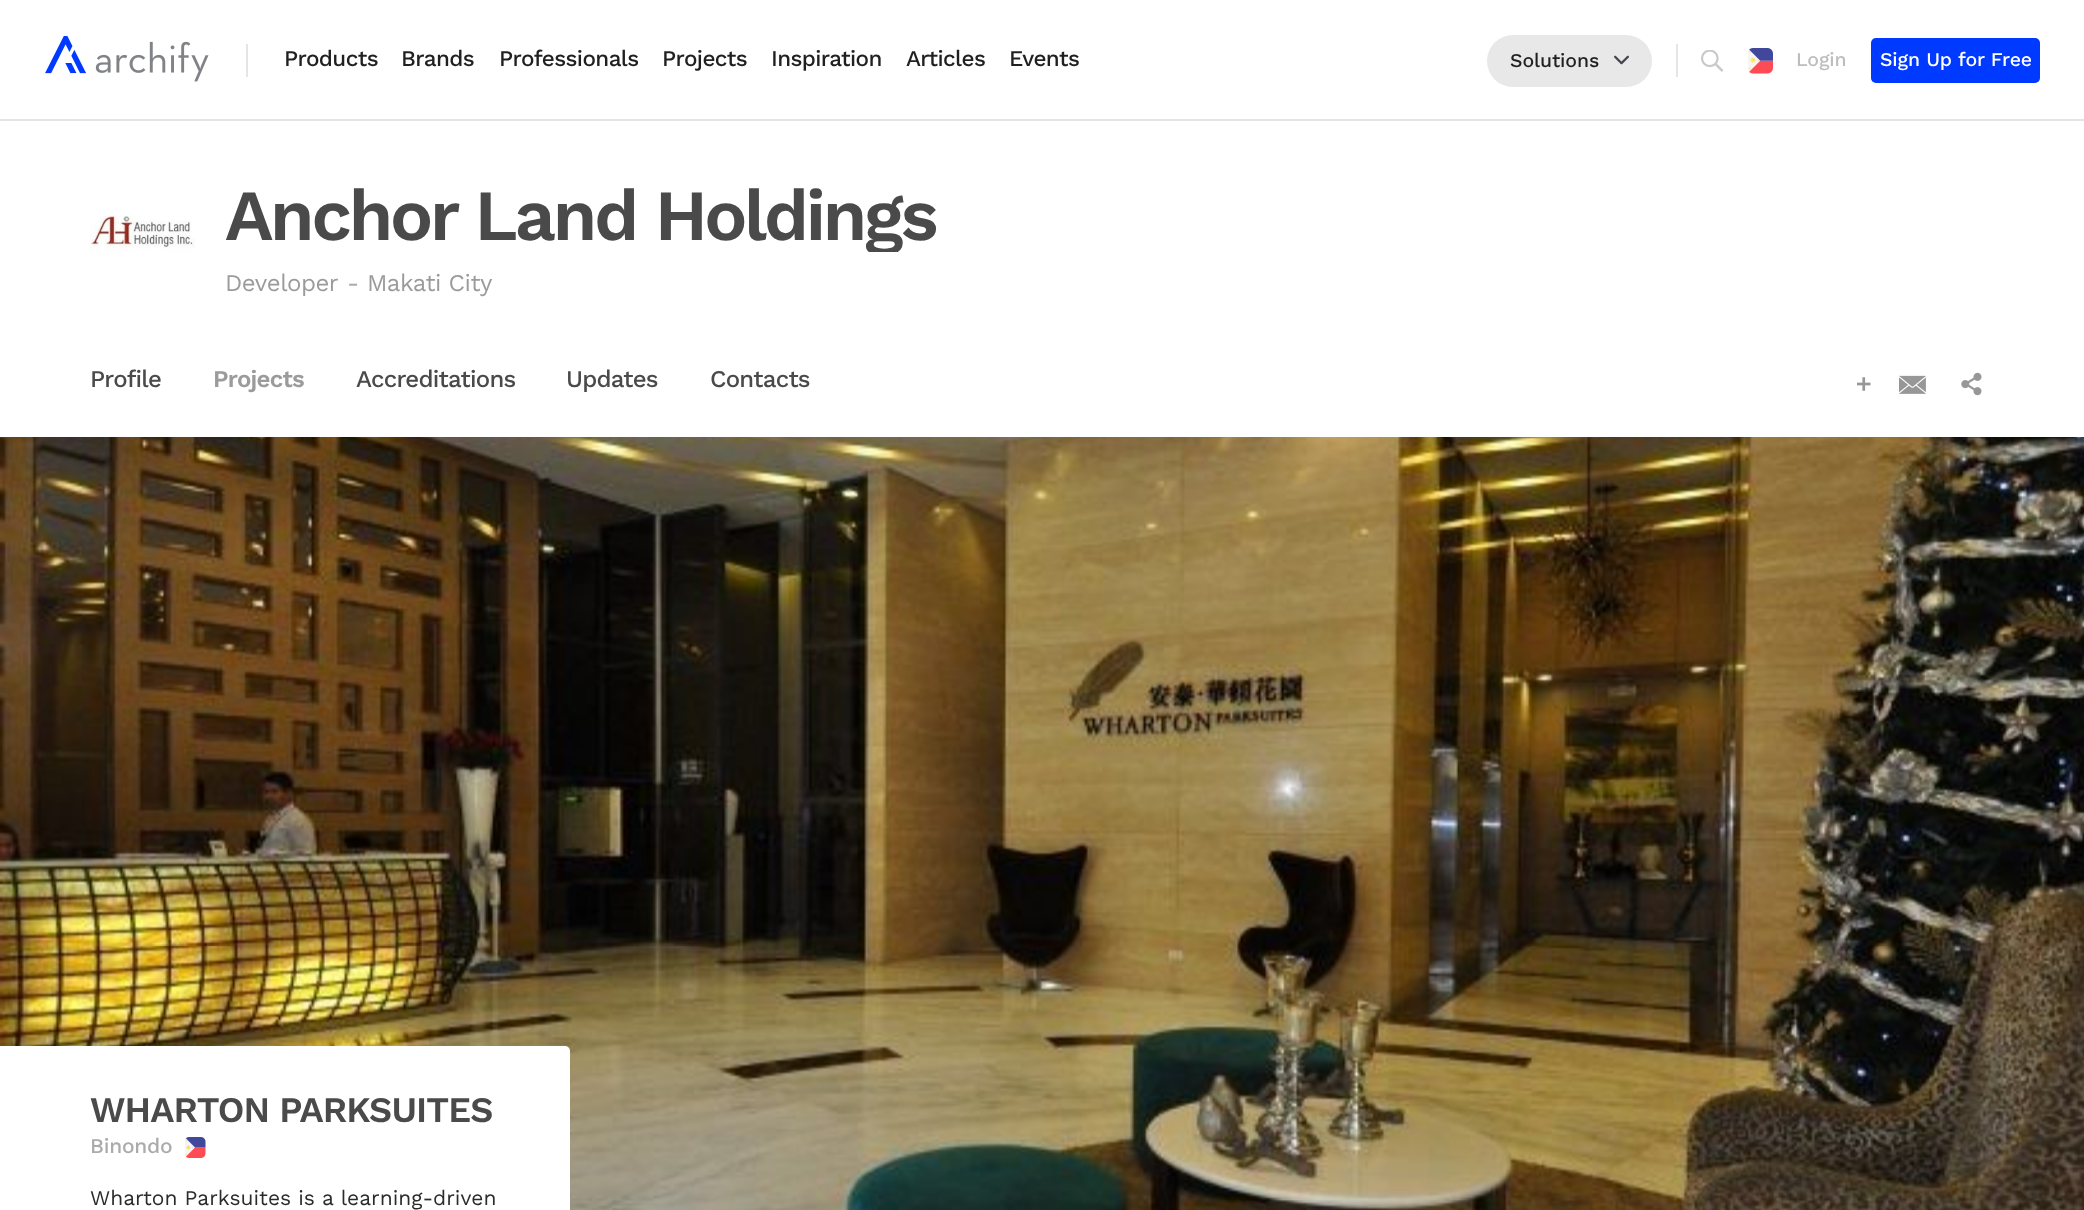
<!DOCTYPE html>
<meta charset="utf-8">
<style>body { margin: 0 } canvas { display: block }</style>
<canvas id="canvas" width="2084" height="1210"></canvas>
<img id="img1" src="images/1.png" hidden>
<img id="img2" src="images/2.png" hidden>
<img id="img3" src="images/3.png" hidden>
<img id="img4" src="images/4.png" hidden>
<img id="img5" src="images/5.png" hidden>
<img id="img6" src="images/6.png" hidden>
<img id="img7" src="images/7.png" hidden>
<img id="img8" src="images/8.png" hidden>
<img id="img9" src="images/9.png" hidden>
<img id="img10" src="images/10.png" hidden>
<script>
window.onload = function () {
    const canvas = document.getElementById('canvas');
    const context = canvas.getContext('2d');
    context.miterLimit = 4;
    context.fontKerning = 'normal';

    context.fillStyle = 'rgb(255, 255, 255)';
    context.fillRect(0, 0, 2084, 1210);
    context.fillStyle = 'rgb(229, 229, 229)';
    context.fillRect(0, 119, 2084, 2);
    context.fillRect(246, 44, 2, 33);
    context.drawImage(document.getElementById('img1'), 45, 36, 164, 46);
    context.fillRect(1676, 44, 2, 33);
    context.fillStyle = 'rgb(232, 232, 232)';
    context.beginPath();
    context.roundRect(1487, 35, 165, 52, 26);
    context.fill();
    context.drawImage(document.getElementById('img2'), 1614, 55, 15, 10);
    context.drawImage(document.getElementById('img3'), 1701, 50, 23, 22);
    context.drawImage(document.getElementById('img4'), 1748, 48, 25, 26);
    context.fillStyle = 'rgb(0, 57, 255)';
    context.beginPath();
    context.roundRect(1871, 38, 169, 45, 5);
    context.fill();
    context.drawImage(document.getElementById('img5'), 90, 215, 105, 37);
    context.drawImage(document.getElementById('img6'), 1857, 377, 14, 14);
    context.drawImage(document.getElementById('img7'), 1899, 375, 27, 19);
    context.drawImage(document.getElementById('img8'), 1961, 372, 21, 24);
    context.drawImage(document.getElementById('img9'), 0, 437, 2084, 773);
    context.fillStyle = 'rgb(255, 255, 255)';
    context.beginPath();
    context.roundRect(-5, 1046, 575, 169, 5);
    context.fill();
    context.drawImage(document.getElementById('img10'), 185, 1137, 21, 21);
    context.letterSpacing = '-0.6px';
    context.font = '500 22.5px Work Sans';
    context.fillStyle = 'rgb(33, 31, 33)';
    context.fillText('Products', 284, 66);
    context.fillText('Brands', 401, 66);
    context.fillText('Professionals', 499, 66);
    context.fillText('Projects', 662, 66);
    context.fillText('Inspiration', 771, 66);
    context.fillText('Articles', 906, 66);
    context.fillText('Events', 1009, 66);
    context.letterSpacing = '-0.1px';
    context.font = '500 19.5px Work Sans';
    context.fillText('Solutions', 1510, 67);
    context.fillStyle = 'rgb(189, 189, 191)';
    context.fillText('Login', 1796, 66);
    context.fillStyle = 'rgb(255, 255, 255)';
    context.fillText('Sign Up for Free', 1880, 66);
    context.save();
    context.beginPath();
    context.rect(225, 180, 1755, 72);
    context.clip();
    context.letterSpacing = '-3.25px';
    context.font = '600 72px Work Sans';
    context.fillStyle = 'rgb(74, 74, 74)';
    context.fillText('Anchor Land Holdings', 225, 240);
    context.restore();
    context.letterSpacing = '-0.5px';
    context.font = '24px Work Sans';
    context.fillStyle = 'rgb(155, 155, 155)';
    context.fillText('Developer', 225, 291);
    context.letterSpacing = '0px';
    context.fillStyle = 'rgb(171, 171, 171)';
    context.fillText('-', 347, 291);
    context.letterSpacing = '-0.5px';
    context.fillStyle = 'rgb(155, 155, 155)';
    context.fillText('Makati City', 367, 291);
    context.letterSpacing = '-0.75px';
    context.font = '500 24px Work Sans';
    context.fillStyle = 'rgb(74, 74, 74)';
    context.fillText('Profile', 90, 387);
    context.font = '600 24px Work Sans';
    context.fillStyle = 'rgb(155, 155, 155)';
    context.fillText('Projects', 213, 387);
    context.font = '500 24px Work Sans';
    context.fillStyle = 'rgb(74, 74, 74)';
    context.fillText('Accreditations', 356, 387);
    context.fillText('Updates', 566, 387);
    context.fillText('Contacts', 710, 387);
    context.letterSpacing = '-0.9px';
    context.font = '600 36px Work Sans';
    context.fillText('WHARTON PARKSUITES', 90, 1122);
    context.letterSpacing = '-0.25px';
    context.font = '500 21px Work Sans';
    context.fillStyle = 'rgb(171, 171, 171)';
    context.fillText('Binondo', 90, 1153);
    context.letterSpacing = '0px';
    context.font = '21px Work Sans';
    context.fillStyle = 'rgb(41, 43, 44)';
    context.fillText('Wharton Parksuites is a learning-driven', 90, 1205);
};
</script>
